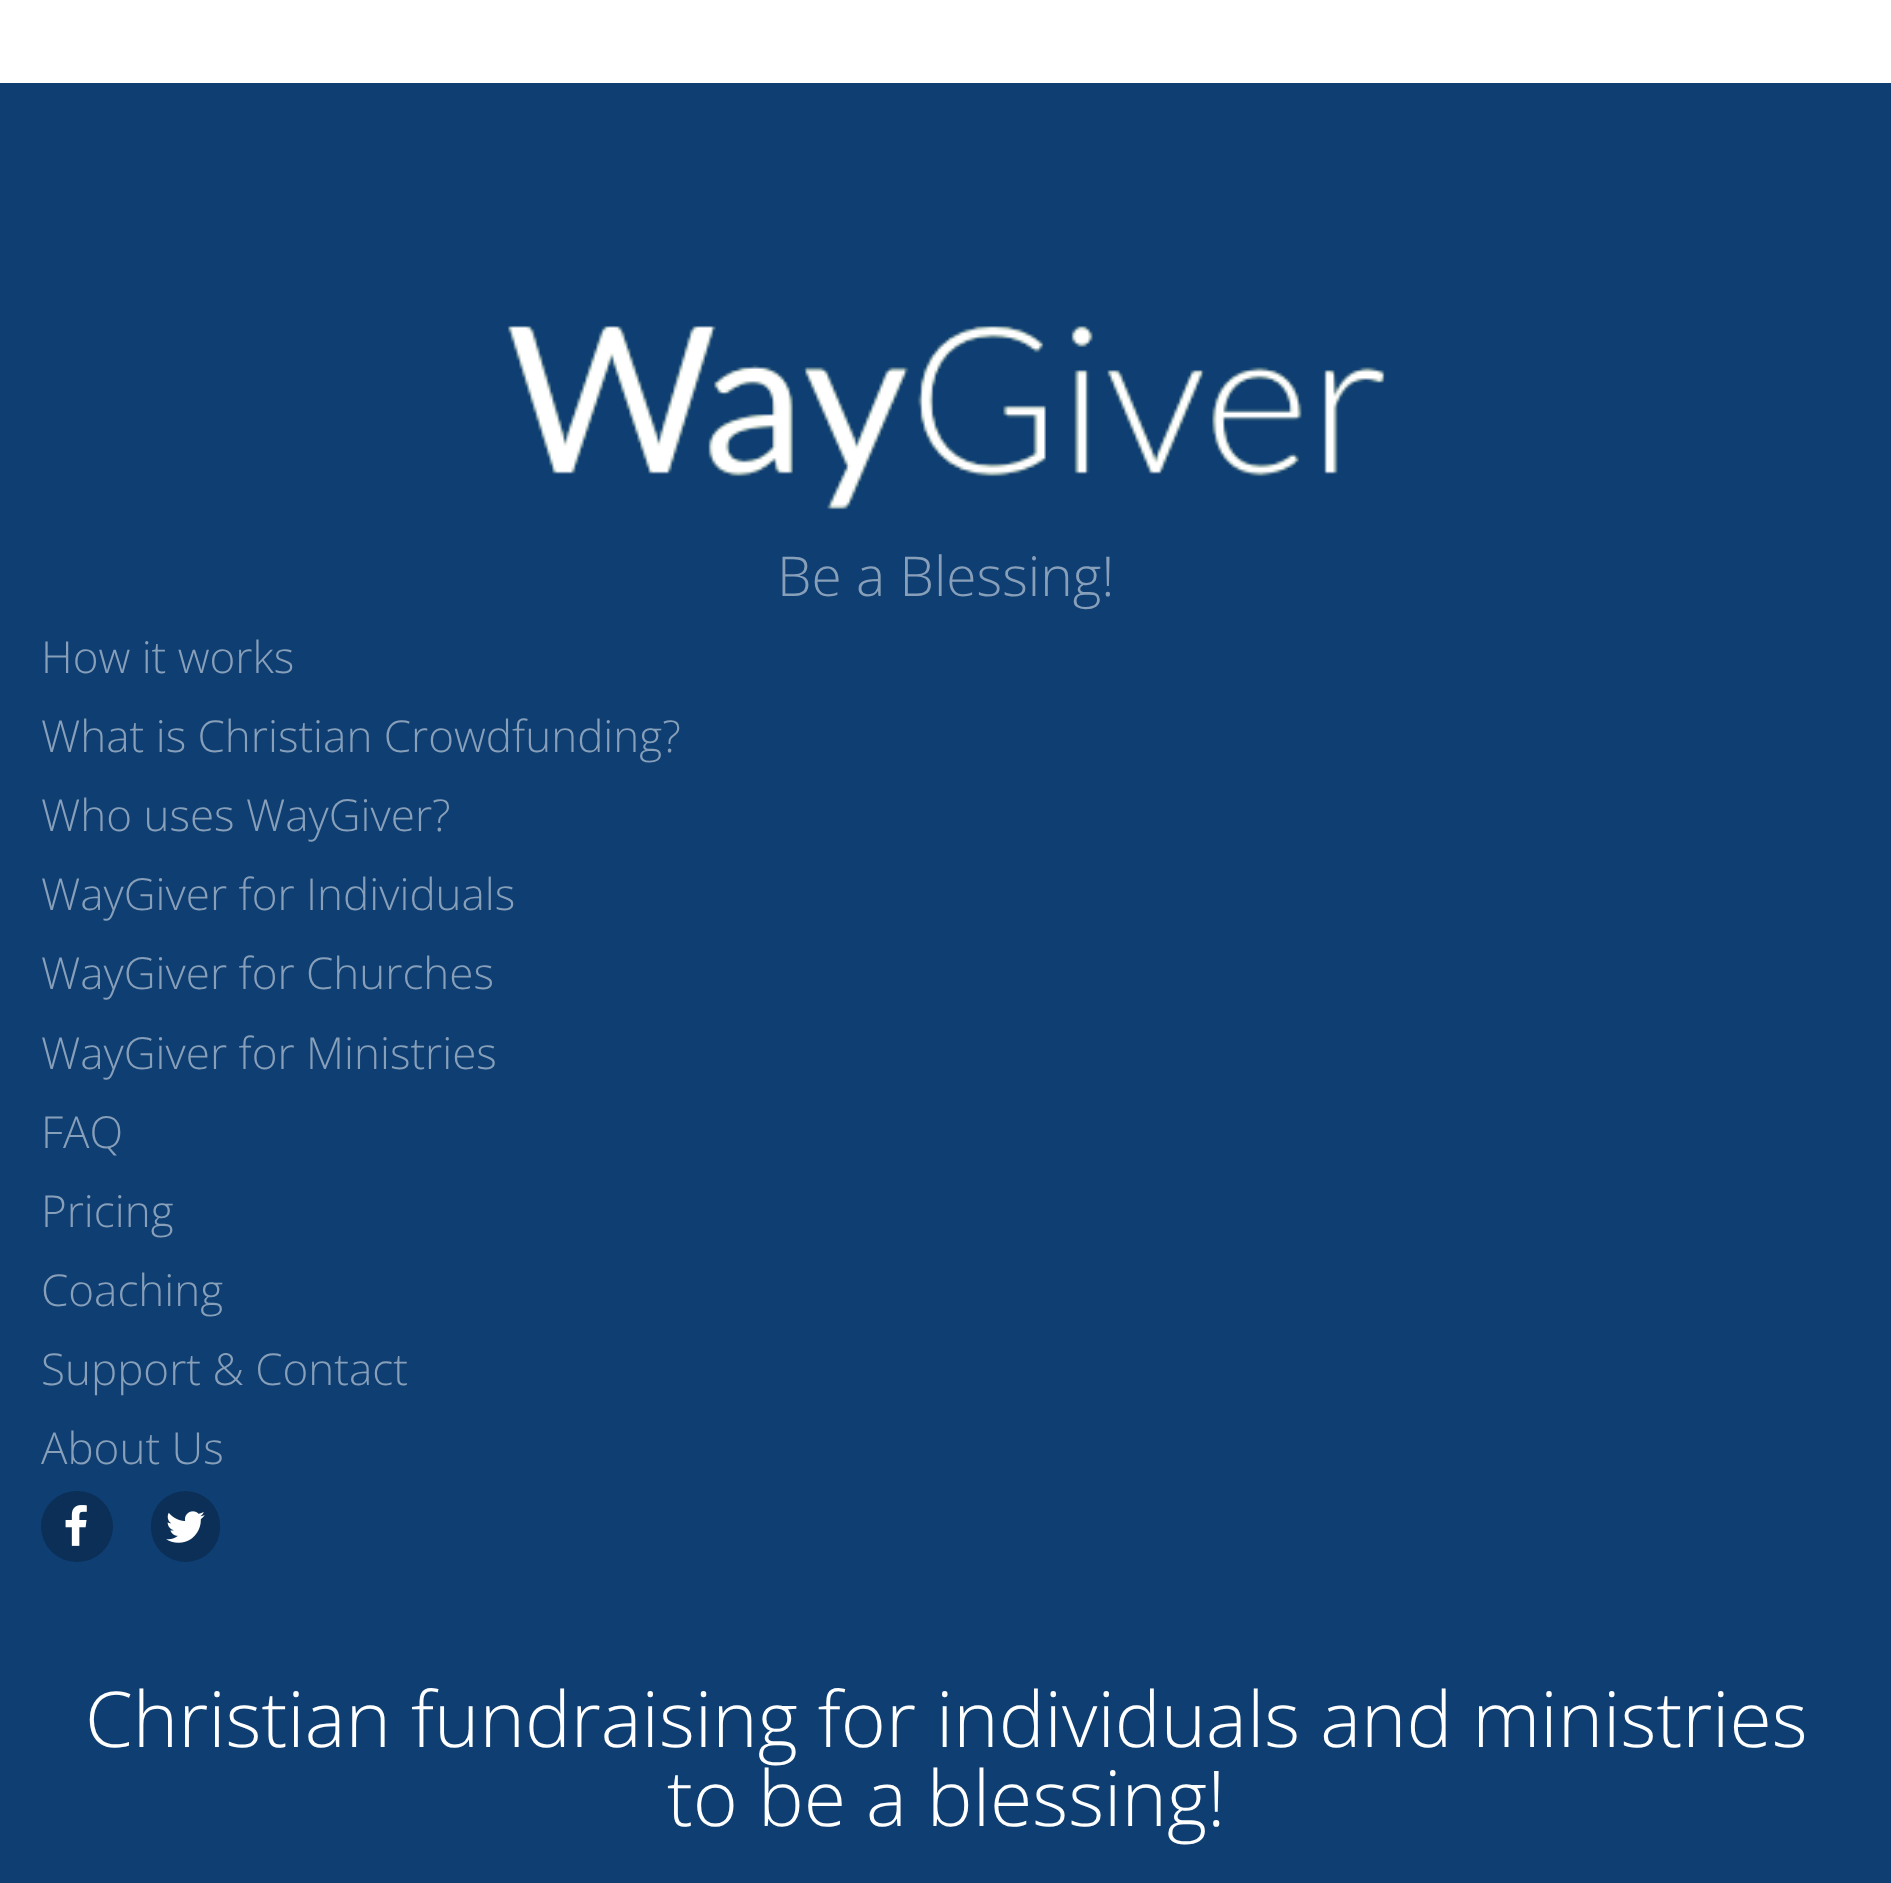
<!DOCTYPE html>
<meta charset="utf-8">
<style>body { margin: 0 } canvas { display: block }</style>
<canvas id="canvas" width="1891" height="1883"></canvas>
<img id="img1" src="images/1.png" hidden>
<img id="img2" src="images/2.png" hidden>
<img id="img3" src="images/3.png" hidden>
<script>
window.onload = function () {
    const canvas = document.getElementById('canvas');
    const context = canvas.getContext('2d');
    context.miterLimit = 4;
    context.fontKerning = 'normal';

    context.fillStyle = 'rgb(255, 255, 255)';
    context.fillRect(0, 0, 1891, 1883);
    context.fillStyle = 'rgb(14, 62, 114)';
    context.fillRect(0, 83, 1891, 1800);
    context.drawImage(document.getElementById('img1'), 508, 325, 877, 185);
    context.fillStyle = 'rgb(11, 47, 86)';
    context.beginPath();
    context.roundRect(41, 1491, 72, 71, 35.5);
    context.fill();
    context.drawImage(document.getElementById('img2'), 65, 1505, 22, 41);
    context.beginPath();
    context.roundRect(151, 1491, 69, 71, 34.5);
    context.fill();
    context.drawImage(document.getElementById('img3'), 166, 1511, 39, 32);
    context.font = '300 55px Open Sans';
    context.fillStyle = 'rgb(135, 159, 185)';
    context.fillText('Be a Blessing!', 777, 596);
    context.font = '300 44px Open Sans';
    context.fillText('How it works', 41, 673);
    context.fillText('What is Christian Crowdfunding?', 41, 752);
    context.fillText('Who uses WayGiver?', 41, 831);
    context.fillText('WayGiver for Individuals', 41, 910);
    context.fillText('WayGiver for Churches', 41, 989);
    context.fillText('WayGiver for Ministries', 41, 1069);
    context.fillText('FAQ', 41, 1148);
    context.fillText('Pricing', 41, 1227);
    context.fillText('Coaching', 41, 1306);
    context.fillText('Support & Contact', 41, 1385);
    context.fillText('About Us', 41, 1464);
    context.font = '300 77px Open Sans';
    context.fillStyle = 'rgb(255, 255, 255)';
    context.fillText('Christian fundraising for individuals and ministries', 85, 1747);
    context.fillText('to be a blessing!', 667, 1826);
};
</script>
